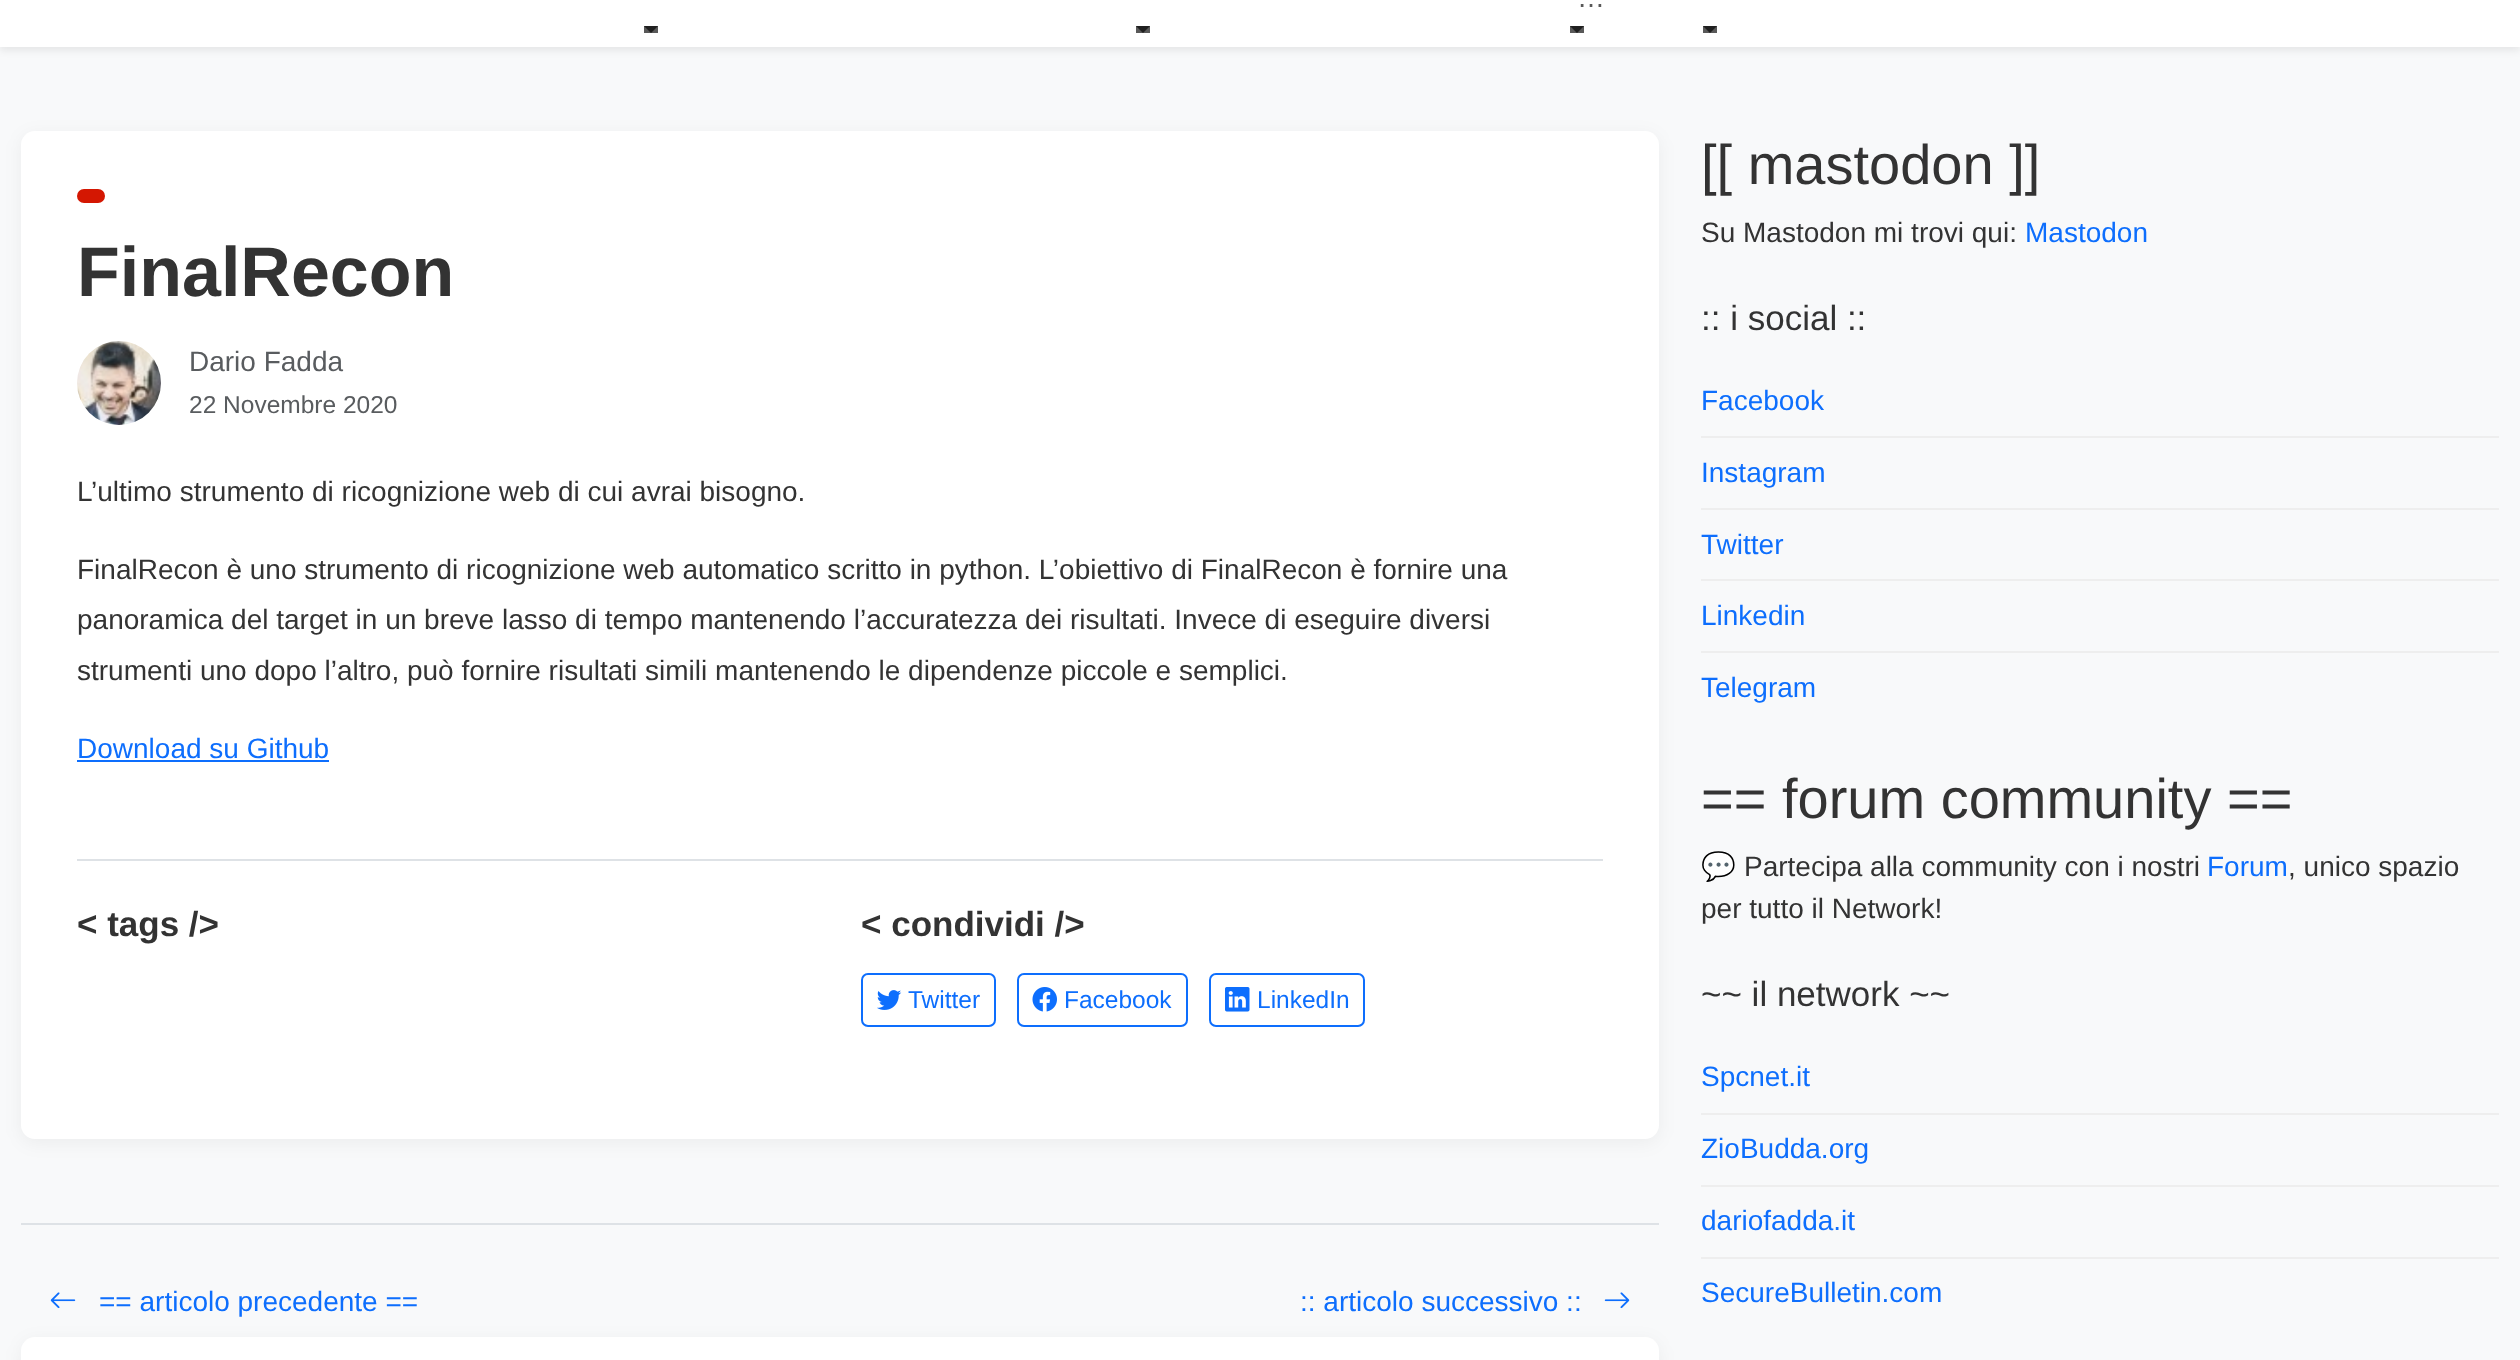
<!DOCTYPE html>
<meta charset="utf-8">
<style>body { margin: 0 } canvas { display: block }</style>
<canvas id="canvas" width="2520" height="1360"></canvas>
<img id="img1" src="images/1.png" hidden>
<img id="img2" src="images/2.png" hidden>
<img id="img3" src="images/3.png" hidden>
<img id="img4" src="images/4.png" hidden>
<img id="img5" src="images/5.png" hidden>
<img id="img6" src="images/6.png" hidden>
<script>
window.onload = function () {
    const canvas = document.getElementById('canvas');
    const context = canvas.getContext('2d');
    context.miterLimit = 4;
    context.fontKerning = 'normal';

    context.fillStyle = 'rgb(248, 249, 250)';
    context.fillRect(0, 0, 2520, 1360);
    context.fillStyle = 'rgba(0, 0, 0, 0.07)';
    context.filter = 'blur(3.5px)';
    context.beginPath();
    context.rect(0, -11, 2520, 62);
    context.fill();
    context.filter = 'none';
    context.fillStyle = 'rgb(255, 255, 255)';
    context.fillRect(0, 0, 2520, 47);
    context.fillStyle = 'rgb(89, 89, 89)';
    context.fillRect(1570, 26, 14, 7);
    context.fillStyle = 'rgb(31, 31, 31)';
    context.beginPath();
    context.moveTo(1570, 26);
    context.lineTo(1584, 26);
    context.lineTo(1577, 33);
    context.closePath();
    context.fill();
    context.fillStyle = 'rgb(89, 89, 89)';
    context.fillRect(644, 26, 14, 7);
    context.fillStyle = 'rgb(31, 31, 31)';
    context.beginPath();
    context.moveTo(644, 26);
    context.lineTo(658, 26);
    context.lineTo(651, 33);
    context.closePath();
    context.fill();
    context.fillStyle = 'rgb(89, 89, 89)';
    context.fillRect(1136, 26, 14, 7);
    context.fillStyle = 'rgb(31, 31, 31)';
    context.beginPath();
    context.moveTo(1136, 26);
    context.lineTo(1150, 26);
    context.lineTo(1143, 33);
    context.closePath();
    context.fill();
    context.fillStyle = 'rgb(89, 89, 89)';
    context.fillRect(1703, 26, 14, 7);
    context.fillStyle = 'rgb(31, 31, 31)';
    context.beginPath();
    context.moveTo(1703, 26);
    context.lineTo(1717, 26);
    context.lineTo(1710, 33);
    context.closePath();
    context.fill();
    context.fillStyle = 'rgba(0, 0, 0, 0.05)';
    context.filter = 'blur(9px)';
    context.beginPath();
    context.roundRect(21, 135, 1638, 1008, 14);
    context.fill();
    context.filter = 'none';
    context.fillStyle = 'rgb(255, 255, 255)';
    context.beginPath();
    context.roundRect(21, 131, 1638, 1008, 14);
    context.fill();
    context.fillStyle = 'rgb(212, 23, 2)';
    context.beginPath();
    context.roundRect(77, 189, 28, 14, 7);
    context.fill();
    context.drawImage(document.getElementById('img1'), 77, 341, 84, 84);
    context.fillStyle = 'rgb(13, 110, 253)';
    context.fillRect(77, 760, 252, 2);
    context.fillStyle = 'rgb(222, 226, 230)';
    context.fillRect(77, 859, 1526, 2);
    context.beginPath();
    context.roundRect(862, 974, 133, 52, 6);
    context.strokeStyle = 'rgb(13, 110, 253)';
    context.lineWidth = 2;
    context.stroke();
    context.drawImage(document.getElementById('img2'), 877, 990, 25, 20);
    context.beginPath();
    context.roundRect(1018, 974, 169, 52, 6);
    context.stroke();
    context.drawImage(document.getElementById('img3'), 1032, 987, 25, 25);
    context.beginPath();
    context.roundRect(1210, 974, 154, 52, 6);
    context.stroke();
    context.drawImage(document.getElementById('img4'), 1225, 987, 25, 25);
    context.fillRect(21, 1223, 1638, 2);
    context.drawImage(document.getElementById('img5'), 50, 1292, 26, 17);
    context.drawImage(document.getElementById('img6'), 1604, 1292, 26, 17);
    context.fillStyle = 'rgba(0, 0, 0, 0.05)';
    context.filter = 'blur(9px)';
    context.beginPath();
    context.roundRect(21, 1341, 1638, 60, 14);
    context.fill();
    context.filter = 'none';
    context.fillStyle = 'rgb(255, 255, 255)';
    context.beginPath();
    context.roundRect(21, 1337, 1638, 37, 14);
    context.fill();
    context.fillStyle = 'rgb(238, 238, 238)';
    context.fillRect(1701, 436, 798, 2);
    context.fillRect(1701, 508, 798, 2);
    context.fillRect(1701, 579, 798, 2);
    context.fillRect(1701, 651, 798, 2);
    context.fillRect(1701, 1113, 798, 2);
    context.fillRect(1701, 1185, 798, 2);
    context.fillRect(1701, 1257, 798, 2);
    context.font = '28px Liberation Sans';
    context.fillStyle = 'rgb(89, 89, 89)';
    context.fillText('…', 1577, 7);
    context.font = 'bold 70px Liberation Sans';
    context.fillStyle = 'rgb(51, 51, 51)';
    context.fillText('FinalRecon', 77, 296);
    context.font = '28px Liberation Sans';
    context.fillStyle = 'rgb(89, 92, 95)';
    context.fillText('Dario Fadda', 189, 371);
    context.font = '24.5px Liberation Sans';
    context.fillText('22 Novembre 2020', 189, 413);
    context.font = '28px Liberation Sans';
    context.fillStyle = 'rgb(51, 51, 51)';
    context.fillText('L’ultimo strumento di ricognizione web di cui avrai bisogno.', 77, 501);
    context.fillText('FinalRecon è uno strumento di ricognizione web automatico scritto in python. L’obiettivo di FinalRecon è fornire una', 77, 579);
    context.fillText('panoramica del target in un breve lasso di tempo mantenendo l’accuratezza dei risultati. Invece di eseguire diversi', 77, 629);
    context.fillText('strumenti uno dopo l’altro, può fornire risultati simili mantenendo le dipendenze piccole e semplici.', 77, 680);
    context.fillStyle = 'rgb(13, 110, 253)';
    context.fillText('Download su Github', 77, 758);
    context.font = 'bold 35px Liberation Sans';
    context.fillStyle = 'rgb(51, 51, 51)';
    context.fillText('< tags />', 77, 936);
    context.fillText('< condividi />', 861, 936);
    context.font = '24.5px Liberation Sans';
    context.fillStyle = 'rgb(13, 110, 253)';
    context.fillText('Twitter', 908, 1008);
    context.fillText('Facebook', 1064, 1008);
    context.fillText('LinkedIn', 1257, 1008);
    context.font = '28px Liberation Sans';
    context.fillText('== articolo precedente ==', 99, 1311);
    context.fillText(':: articolo successivo ::', 1300, 1311);
    context.font = '56px Liberation Sans';
    context.fillStyle = 'rgb(51, 51, 51)';
    context.fillText('[[ mastodon ]]', 1701, 184);
    context.font = '28px Liberation Sans';
    context.fillText('Su Mastodon mi trovi qui:', 1701, 242);
    context.fillStyle = 'rgb(13, 110, 253)';
    context.fillText('Mastodon', 2025, 242);
    context.font = '35px Liberation Sans';
    context.fillStyle = 'rgb(51, 51, 51)';
    context.fillText(':: i social ::', 1701, 330);
    context.font = '28px Liberation Sans';
    context.fillStyle = 'rgb(13, 110, 253)';
    context.fillText('Facebook', 1701, 410);
    context.fillText('Instagram', 1701, 482);
    context.fillText('Twitter', 1701, 554);
    context.fillText('Linkedin', 1701, 625);
    context.fillText('Telegram', 1701, 697);
    context.font = '56px Liberation Sans';
    context.fillStyle = 'rgb(51, 51, 51)';
    context.fillText('== forum community ==', 1701, 818);
    context.font = '28px Noto Color Emoji';
    context.fillText('💬', 1701, 876);
    context.font = '28px Liberation Sans';
    context.fillText('Partecipa alla community con i nostri', 1744, 876);
    context.fillStyle = 'rgb(13, 110, 253)';
    context.fillText('Forum', 2207, 876);
    context.fillStyle = 'rgb(51, 51, 51)';
    context.fillText(', unico spazio', 2288, 876);
    context.fillText('per tutto il Network!', 1701, 918);
    context.font = '35px Liberation Sans';
    context.fillText('~~ il network ~~', 1701, 1006);
    context.font = '28px Liberation Sans';
    context.fillStyle = 'rgb(13, 110, 253)';
    context.fillText('Spcnet.it', 1701, 1086);
    context.fillText('ZioBudda.org', 1701, 1158);
    context.fillText('dariofadda.it', 1701, 1230);
    context.fillText('SecureBulletin.com', 1701, 1302);
};
</script>
